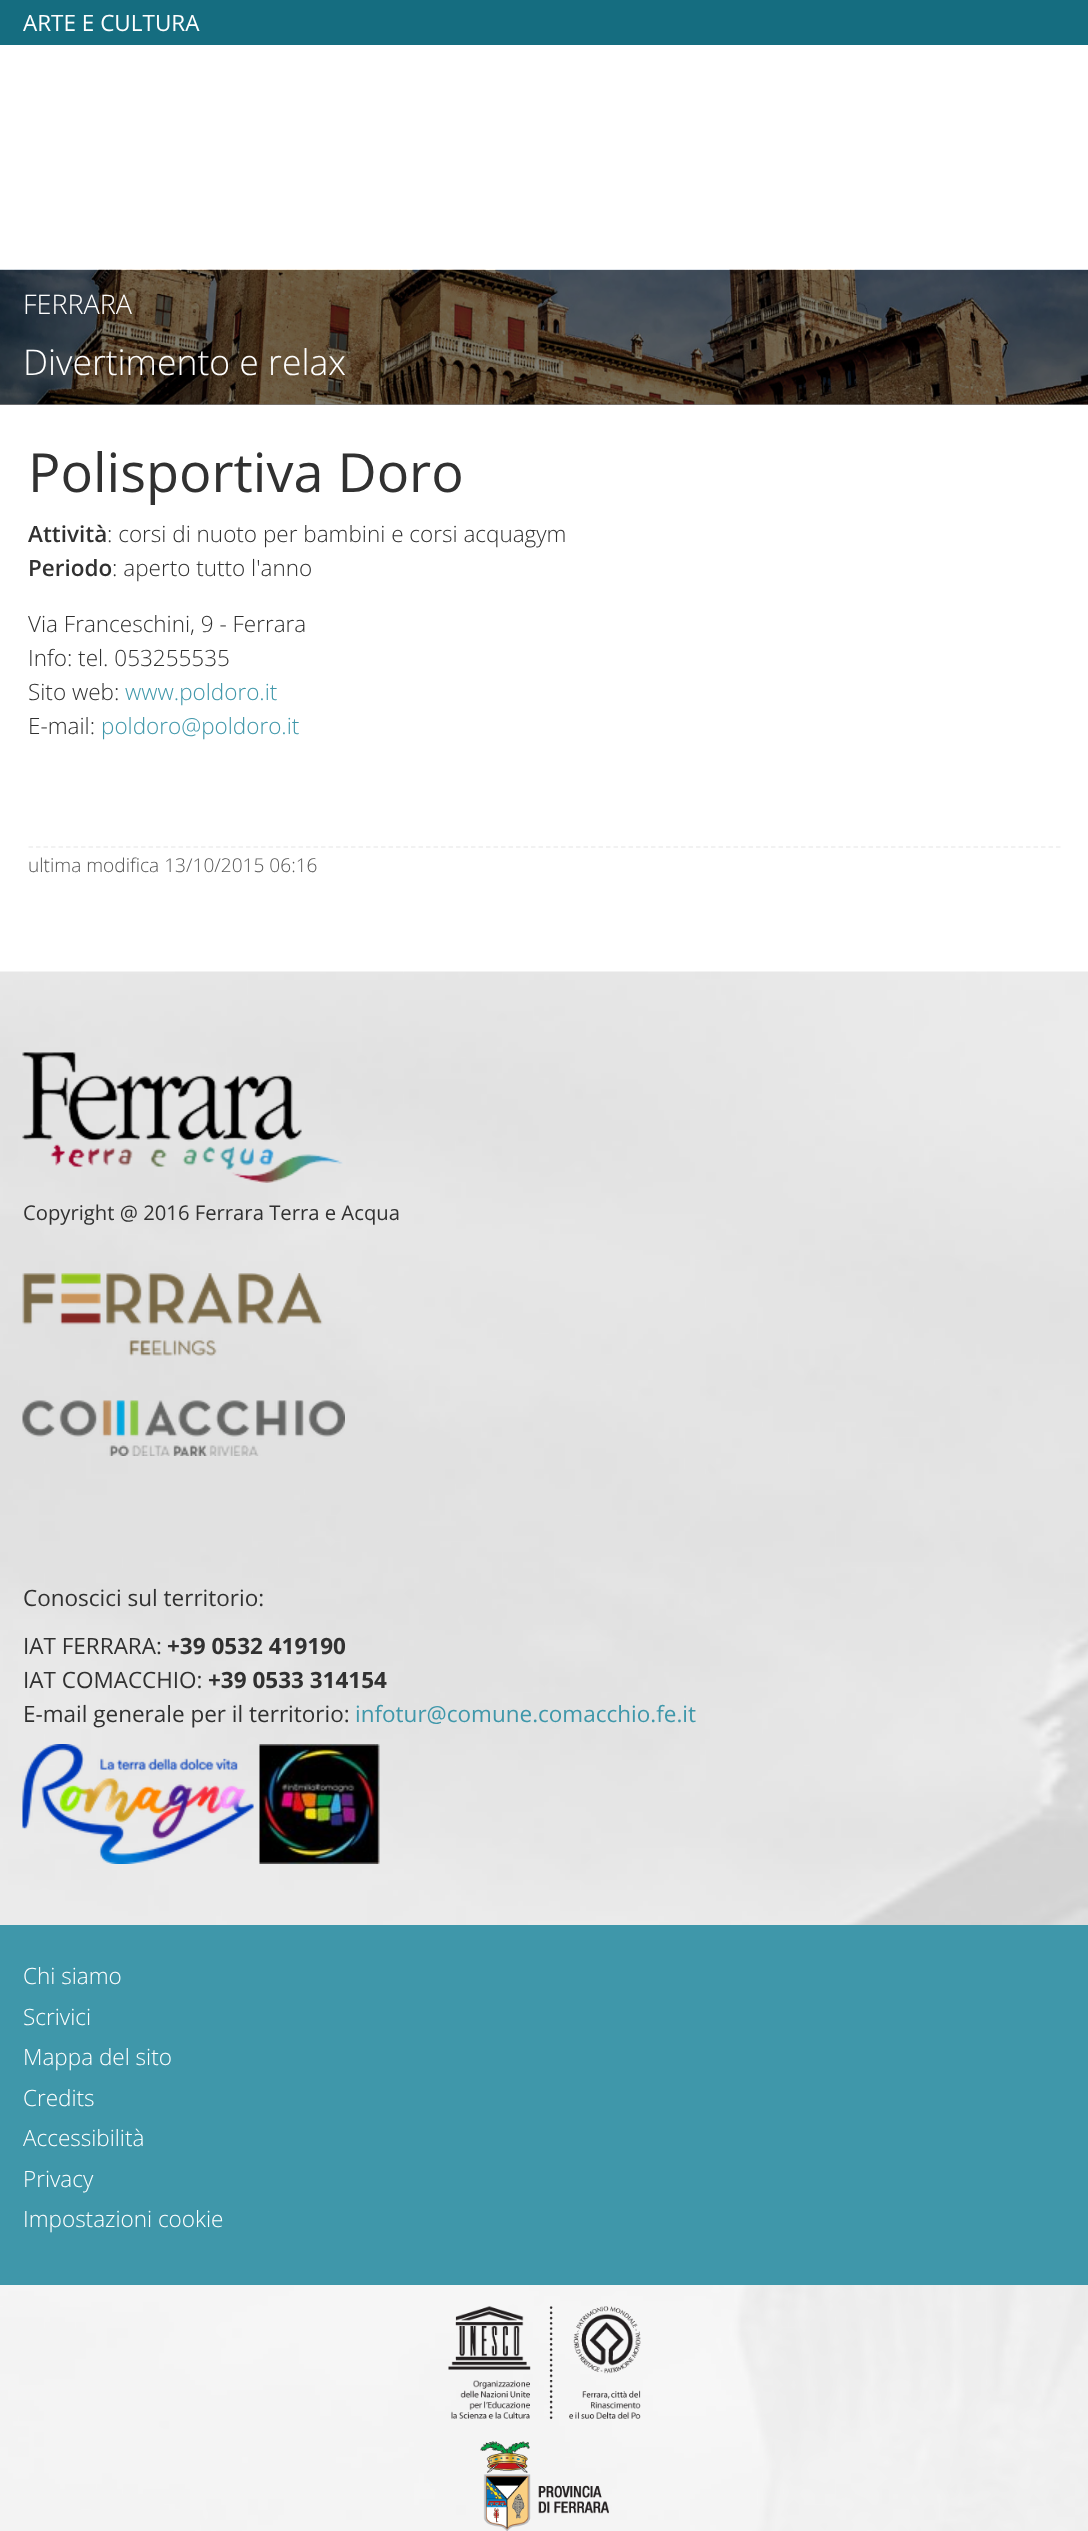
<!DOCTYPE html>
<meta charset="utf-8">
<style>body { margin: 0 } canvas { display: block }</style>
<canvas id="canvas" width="1088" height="2531"></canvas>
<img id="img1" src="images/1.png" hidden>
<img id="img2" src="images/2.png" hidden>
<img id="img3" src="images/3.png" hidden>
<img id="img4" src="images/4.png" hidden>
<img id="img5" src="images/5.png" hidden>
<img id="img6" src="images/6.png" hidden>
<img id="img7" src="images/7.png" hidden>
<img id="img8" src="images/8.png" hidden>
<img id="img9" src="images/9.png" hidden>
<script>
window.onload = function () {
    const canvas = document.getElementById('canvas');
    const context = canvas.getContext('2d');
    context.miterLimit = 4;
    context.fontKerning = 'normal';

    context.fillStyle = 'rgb(255, 255, 255)';
    context.fillRect(0, 0, 1088, 2531);
    context.fillStyle = 'rgb(21, 109, 128)';
    context.fillRect(0, 0, 1088, 45);
    context.fillStyle = 'rgb(120, 119, 120)';
    context.fillRect(0, 404, 1088, 1);
    context.drawImage(document.getElementById('img1'), 0, 269, 1088, 136);
    context.beginPath();
    context.moveTo(28.5, 847);
    context.lineTo(1060.5, 847);
    context.strokeStyle = 'rgb(238, 238, 238)';
    context.lineWidth = 1.5;
    context.setLineDash([4.5, 3]);
    context.stroke();
    context.drawImage(document.getElementById('img2'), 0, 971, 1088, 1560);
    context.drawImage(document.getElementById('img3'), 22, 1052, 321, 131);
    context.drawImage(document.getElementById('img4'), 22, 1273, 301, 83);
    context.drawImage(document.getElementById('img5'), 22, 1400, 323, 56);
    context.drawImage(document.getElementById('img6'), 22, 1744, 232, 120);
    context.drawImage(document.getElementById('img7'), 259, 1744, 121, 120);
    context.fillStyle = 'rgb(63, 151, 170)';
    context.fillRect(0, 1925, 1088, 360);
    context.fillStyle = 'rgba(255, 255, 255, 0.5)';
    context.fillRect(0, 2285, 1088, 246);
    context.drawImage(document.getElementById('img8'), 448, 2306, 193, 113);
    context.drawImage(document.getElementById('img9'), 480, 2441, 129, 90);
    context.font = '22.5px Open Sans';
    context.fillStyle = 'rgb(255, 255, 255)';
    context.fillText('ARTE E CULTURA', 23, 31);
    context.font = '300 27px Open Sans';
    context.fillText('FERRARA', 23, 314);
    context.font = '300 35.5px Open Sans';
    context.fillText('Divertimento e relax', 23, 375);
    context.font = '54px Open Sans';
    context.fillStyle = 'rgb(49, 49, 49)';
    context.fillText('Polisportiva Doro', 28, 492);
    context.font = '600 22.5px Open Sans';
    context.fillText('Attività', 28, 542);
    context.font = '300 22.5px Open Sans';
    context.fillText(': corsi di nuoto per bambini e corsi acquagym', 107, 542);
    context.font = '600 22.5px Open Sans';
    context.fillText('Periodo', 28, 576);
    context.font = '300 22.5px Open Sans';
    context.fillText(': aperto tutto l\'anno', 112, 576);
    context.fillText('Via Franceschini, 9 - Ferrara', 28, 632);
    context.fillText('Info: tel. 053255535', 28, 666);
    context.fillText('Sito web:', 28, 700);
    context.fillStyle = 'rgb(63, 151, 170)';
    context.fillText('www.poldoro.it', 125, 700);
    context.fillStyle = 'rgb(49, 49, 49)';
    context.fillText('E-mail:', 28, 734);
    context.fillStyle = 'rgb(63, 151, 170)';
    context.fillText('poldoro@poldoro.it', 101, 734);
    context.font = '300 19.1px Open Sans';
    context.fillStyle = 'rgb(85, 85, 85)';
    context.fillText('ultima modifica 13/10/2015 06:16', 28, 872);
    context.font = '20.25px Open Sans';
    context.fillStyle = 'rgb(49, 49, 49)';
    context.fillText('Copyright @ 2016 Ferrara Terra e Acqua', 23, 1220);
    context.font = '22.5px Open Sans';
    context.fillText('Conoscici sul territorio:', 23, 1606);
    context.fillText('IAT FERRARA:', 23, 1654);
    context.font = 'bold 22.5px Open Sans';
    context.fillText('+39 0532 419190', 167, 1654);
    context.font = '22.5px Open Sans';
    context.fillText('IAT COMACCHIO:', 23, 1688);
    context.font = 'bold 22.5px Open Sans';
    context.fillText('+39 0533 314154', 208, 1688);
    context.font = '22.5px Open Sans';
    context.fillText('E-mail generale per il territorio:', 23, 1722);
    context.fillStyle = 'rgb(63, 151, 170)';
    context.fillText('infotur@comune.comacchio.fe.it', 355, 1722);
    context.font = '300 22.5px Open Sans';
    context.fillStyle = 'rgb(255, 255, 255)';
    context.fillText('Chi siamo', 23, 1984);
    context.fillText('Scrivici', 23, 2025);
    context.fillText('Mappa del sito', 23, 2065);
    context.fillText('Credits', 23, 2106);
    context.fillText('Accessibilità', 23, 2146);
    context.fillText('Privacy', 23, 2187);
    context.fillText('Impostazioni cookie', 23, 2227);
};
</script>
